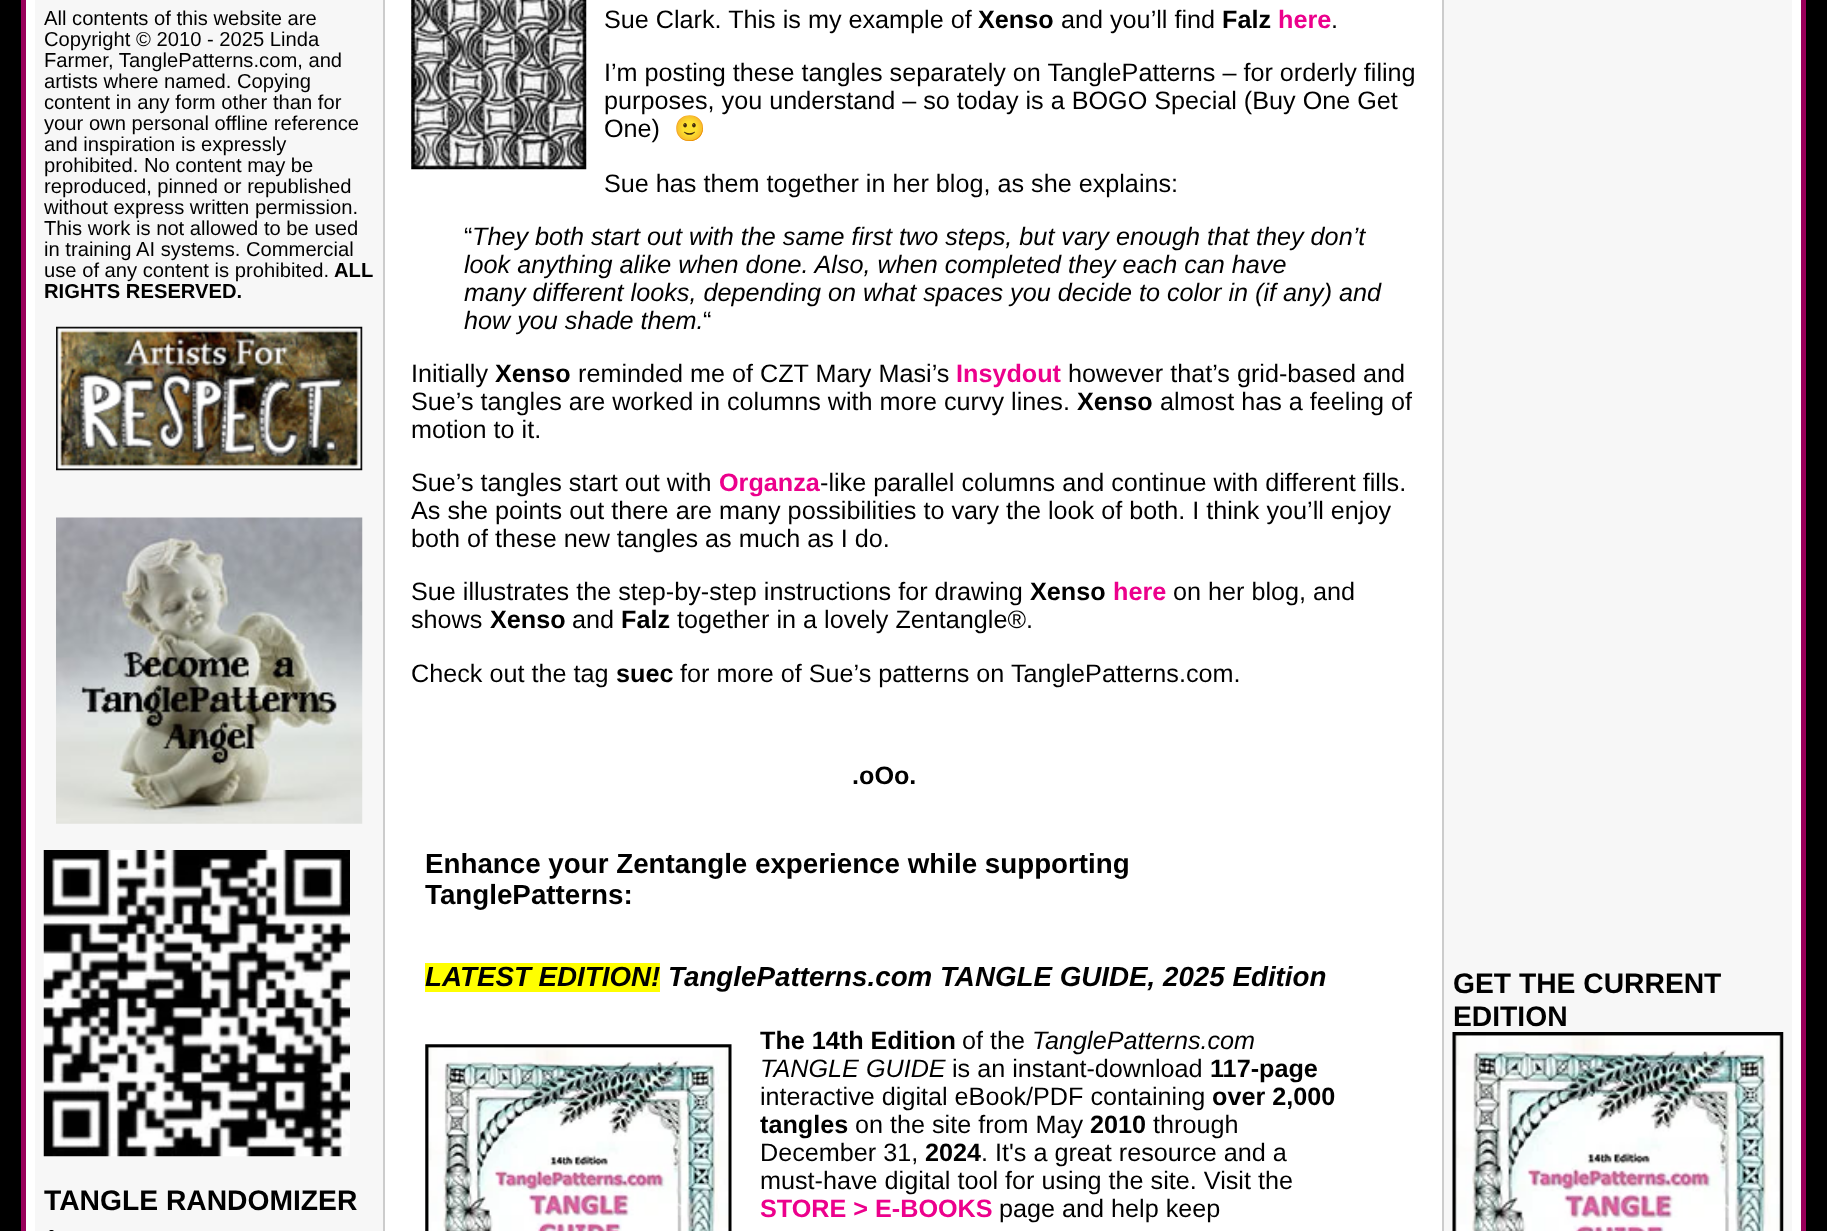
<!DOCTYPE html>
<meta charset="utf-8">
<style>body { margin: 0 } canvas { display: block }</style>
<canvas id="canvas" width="1827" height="1231"></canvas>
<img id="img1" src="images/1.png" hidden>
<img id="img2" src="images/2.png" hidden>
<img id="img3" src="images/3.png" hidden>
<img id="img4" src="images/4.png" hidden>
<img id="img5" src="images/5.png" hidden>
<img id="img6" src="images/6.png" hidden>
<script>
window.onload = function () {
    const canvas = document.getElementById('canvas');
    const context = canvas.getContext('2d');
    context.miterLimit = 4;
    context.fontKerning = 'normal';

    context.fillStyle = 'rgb(0, 0, 0)';
    context.fillRect(0, 0, 1827, 1231);
    context.fillStyle = 'rgb(255, 255, 255)';
    context.beginPath();
    context.rect(23.5, -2.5, 1780, 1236);
    context.fill();
    context.strokeStyle = 'rgb(153, 0, 90)';
    context.lineWidth = 5;
    context.stroke();
    context.fillStyle = 'rgb(247, 247, 247)';
    context.fillRect(35, 0, 348, 1231);
    context.fillStyle = 'rgb(204, 204, 204)';
    context.fillRect(383, 0, 2, 1231);
    context.drawImage(document.getElementById('img1'), 56, 326, 307, 145);
    context.drawImage(document.getElementById('img2'), 56, 517, 307, 307);
    context.drawImage(document.getElementById('img3'), 43, 850, 307, 307);
    context.fillStyle = 'rgb(0, 0, 0)';
    context.beginPath();
    context.roundRect(49, 1230, 5, 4, 2.5);
    context.fill();
    context.drawImage(document.getElementById('img4'), 411, 0, 176, 170);
    context.fillStyle = 'rgb(255, 255, 0)';
    context.fillRect(425, 963, 235, 29);
    context.drawImage(document.getElementById('img5'), 425, 1044, 307, 187);
    context.fillStyle = 'rgb(247, 247, 247)';
    context.fillRect(1444, 0, 348, 1231);
    context.fillStyle = 'rgb(204, 204, 204)';
    context.fillRect(1442, 0, 2, 1231);
    context.drawImage(document.getElementById('img6'), 1452, 1032, 332, 199);
    context.font = '20.2px Liberation Sans';
    context.fillStyle = 'rgb(0, 0, 0)';
    context.fillText('All contents of this website are', 44, 25);
    context.fillText('Copyright © 2010 - 2025 Linda', 44, 46);
    context.fillText('Farmer, TanglePatterns.com, and', 44, 67);
    context.fillText('artists where named. Copying', 44, 88);
    context.fillText('content in any form other than for', 44, 109);
    context.fillText('your own personal offline reference', 44, 130);
    context.fillText('and inspiration is expressly', 44, 151);
    context.fillText('prohibited. No content may be', 44, 172);
    context.fillText('reproduced, pinned or republished', 44, 193);
    context.fillText('without express written permission.', 44, 214);
    context.fillText('This work is not allowed to be used', 44, 235);
    context.fillText('in training AI systems. Commercial', 44, 256);
    context.fillText('use of any content is prohibited.', 44, 277);
    context.font = 'bold 20.2px Liberation Sans';
    context.fillText('ALL', 334, 277);
    context.fillText('RIGHTS RESERVED.', 44, 298);
    context.font = 'bold 28.25px Liberation Sans';
    context.fillText('TANGLE RANDOMIZER', 44, 1210);
    context.font = '25.2px Liberation Sans';
    context.fillText('Sue Clark. This is my example of', 604, 28);
    context.font = 'bold 25.2px Liberation Sans';
    context.fillText('Xenso', 978, 28);
    context.font = '25.2px Liberation Sans';
    context.fillText('and you’ll find', 1061, 28);
    context.font = 'bold 25.2px Liberation Sans';
    context.fillText('Falz', 1222, 28);
    context.fillStyle = 'rgb(236, 0, 140)';
    context.fillText('here', 1278, 28);
    context.font = '25.2px Liberation Sans';
    context.fillStyle = 'rgb(0, 0, 0)';
    context.fillText('.', 1331, 28);
    context.fillText('I’m posting these tangles separately on TanglePatterns – for orderly filing', 604, 81);
    context.fillText('purposes, you understand – so today is a BOGO Special (Buy One Get', 604, 109);
    context.fillText('One)', 604, 137);
    context.font = '25.2px Noto Color Emoji';
    context.fillText('🙂', 674, 137);
    context.font = '25.2px Liberation Sans';
    context.fillText('Sue has them together in her blog, as she explains:', 604, 192);
    context.fillText('“', 464, 245);
    context.font = 'italic 25.2px Liberation Sans';
    context.fillText('They both start out with the same first two steps, but vary enough that they don’t', 472, 245);
    context.fillText('look anything alike when done. Also, when completed they each can have', 464, 273);
    context.fillText('many different looks, depending on what spaces you decide to color in (if any) and', 464, 301);
    context.fillText('how you shade them.', 464, 329);
    context.font = '25.2px Liberation Sans';
    context.fillText('“', 703, 329);
    context.fillText('Initially', 411, 382);
    context.font = 'bold 25.2px Liberation Sans';
    context.fillText('Xenso', 495, 382);
    context.font = '25.2px Liberation Sans';
    context.fillText('reminded me of CZT Mary Masi’s', 578, 382);
    context.font = 'bold 25.2px Liberation Sans';
    context.fillStyle = 'rgb(236, 0, 140)';
    context.fillText('Insydout', 956, 382);
    context.font = '25.2px Liberation Sans';
    context.fillStyle = 'rgb(0, 0, 0)';
    context.fillText('however that’s grid-based and', 1068, 382);
    context.fillText('Sue’s tangles are worked in columns with more curvy lines.', 411, 410);
    context.font = 'bold 25.2px Liberation Sans';
    context.fillText('Xenso', 1077, 410);
    context.font = '25.2px Liberation Sans';
    context.fillText('almost has a feeling of', 1160, 410);
    context.fillText('motion to it.', 411, 438);
    context.fillText('Sue’s tangles start out with', 411, 491);
    context.font = 'bold 25.2px Liberation Sans';
    context.fillStyle = 'rgb(236, 0, 140)';
    context.fillText('Organza', 719, 491);
    context.font = '25.2px Liberation Sans';
    context.fillStyle = 'rgb(0, 0, 0)';
    context.fillText('-like parallel columns and continue with different fills.', 820, 491);
    context.fillText('As she points out there are many possibilities to vary the look of both. I think you’ll enjoy', 411, 519);
    context.fillText('both of these new tangles as much as I do.', 411, 547);
    context.fillText('Sue illustrates the step-by-step instructions for drawing', 411, 600);
    context.font = 'bold 25.2px Liberation Sans';
    context.fillText('Xenso', 1030, 600);
    context.fillStyle = 'rgb(236, 0, 140)';
    context.fillText('here', 1113, 600);
    context.font = '25.2px Liberation Sans';
    context.fillStyle = 'rgb(0, 0, 0)';
    context.fillText('on her blog, and', 1173, 600);
    context.fillText('shows', 411, 628);
    context.font = 'bold 25.2px Liberation Sans';
    context.fillText('Xenso', 490, 628);
    context.font = '25.2px Liberation Sans';
    context.fillText('and', 572, 628);
    context.font = 'bold 25.2px Liberation Sans';
    context.fillText('Falz', 621, 628);
    context.font = '25.2px Liberation Sans';
    context.fillText('together in a lovely Zentangle®.', 677, 628);
    context.fillText('Check out the tag', 411, 682);
    context.font = 'bold 25.2px Liberation Sans';
    context.fillText('suec', 616, 682);
    context.font = '25.2px Liberation Sans';
    context.fillText('for more of Sue’s patterns on TanglePatterns.com.', 680, 682);
    context.font = 'bold 25.2px Liberation Sans';
    context.fillText('.oOo.', 852, 784);
    context.font = 'bold 27.75px Liberation Sans';
    context.fillText('Enhance your Zentangle experience while supporting', 425, 873);
    context.fillText('TanglePatterns:', 425, 904);
    context.font = 'italic bold 27.75px Liberation Sans';
    context.fillText('LATEST EDITION! TanglePatterns.com TANGLE GUIDE, 2025 Edition', 425, 986);
    context.font = 'bold 25.2px Liberation Sans';
    context.fillText('The 14th Edition', 760, 1049);
    context.font = '25.2px Liberation Sans';
    context.fillText('of the', 962, 1049);
    context.font = 'italic 25.2px Liberation Sans';
    context.fillText('TanglePatterns.com', 1032, 1049);
    context.fillText('TANGLE GUIDE', 760, 1077);
    context.font = '25.2px Liberation Sans';
    context.fillText('is an instant-download', 952, 1077);
    context.font = 'bold 25.2px Liberation Sans';
    context.fillText('117-page', 1210, 1077);
    context.font = '25.2px Liberation Sans';
    context.fillText('interactive digital eBook/PDF containing', 760, 1105);
    context.font = 'bold 25.2px Liberation Sans';
    context.fillText('over 2,000', 1212, 1105);
    context.fillText('tangles', 760, 1133);
    context.font = '25.2px Liberation Sans';
    context.fillText('on the site from May', 855, 1133);
    context.font = 'bold 25.2px Liberation Sans';
    context.fillText('2010', 1090, 1133);
    context.font = '25.2px Liberation Sans';
    context.fillText('through', 1153, 1133);
    context.fillText('December 31,', 760, 1161);
    context.font = 'bold 25.2px Liberation Sans';
    context.fillText('2024', 925, 1161);
    context.font = '25.2px Liberation Sans';
    context.fillText('. It\'s a great resource and a', 981, 1161);
    context.fillText('must-have digital tool for using the site. Visit the', 760, 1189);
    context.font = 'bold 25.2px Liberation Sans';
    context.fillStyle = 'rgb(236, 0, 140)';
    context.fillText('STORE > E-BOOKS', 760, 1217);
    context.font = '25.2px Liberation Sans';
    context.fillStyle = 'rgb(0, 0, 0)';
    context.fillText('page and help keep', 999, 1217);
    context.font = 'bold 28.25px Liberation Sans';
    context.fillText('GET THE CURRENT', 1453, 993);
    context.fillText('EDITION', 1453, 1026);
};
</script>
